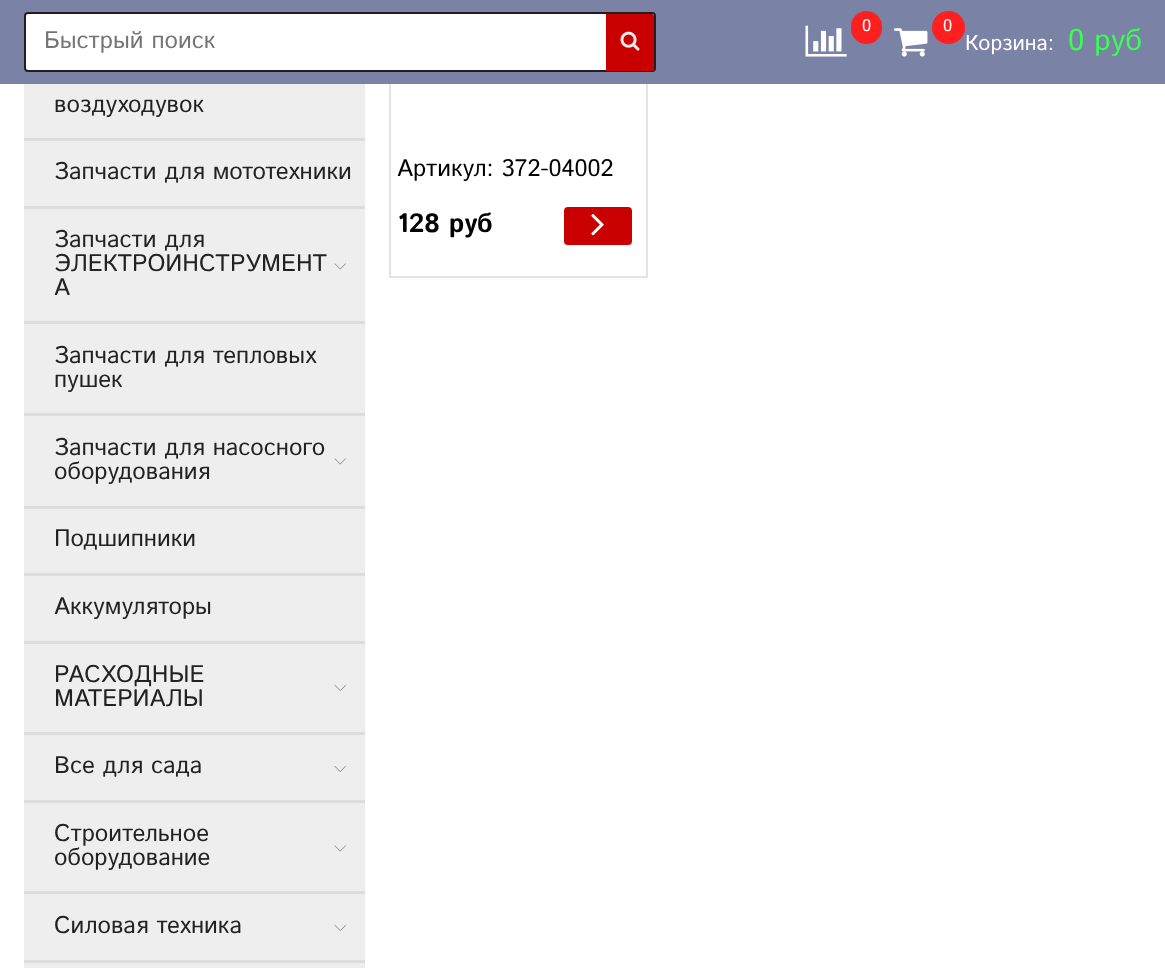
<!DOCTYPE html>
<meta charset="utf-8">
<style>body { margin: 0 } canvas { display: block }</style>
<canvas id="canvas" width="1165" height="968"></canvas>
<img id="img1" src="images/1.png" hidden>
<img id="img2" src="images/2.png" hidden>
<img id="img3" src="images/3.png" hidden>
<img id="img4" src="images/4.png" hidden>
<img id="img5" src="images/5.png" hidden>
<img id="img6" src="images/6.png" hidden>
<script>
window.onload = function () {
    const canvas = document.getElementById('canvas');
    const context = canvas.getContext('2d');
    context.miterLimit = 4;
    context.fontKerning = 'normal';

    context.fillStyle = 'rgb(255, 255, 255)';
    context.fillRect(0, 0, 1165, 968);
    context.strokeStyle = 'rgb(230, 226, 226)';
    context.lineWidth = 2;
    context.strokeRect(390, -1, 257, 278);
    context.fillStyle = 'rgb(122, 130, 166)';
    context.fillRect(0, 0, 1165, 84);
    context.fillStyle = 'rgb(255, 255, 255)';
    context.beginPath();
    context.roundRect(25, 13, 630, 58, 3);
    context.fill();
    context.strokeStyle = 'rgb(36, 28, 30)';
    context.stroke();
    context.fillStyle = 'rgb(202, 0, 0)';
    context.beginPath();
    context.roundRect(606, 14, 48, 57, [0, 2, 2, 0]);
    context.fill();
    context.drawImage(document.getElementById('img1'), 620, 31, 20, 20);
    context.drawImage(document.getElementById('img2'), 805, 25, 42, 32);
    context.fillStyle = 'rgb(255, 31, 31)';
    context.beginPath();
    context.roundRect(851, 11, 31, 33, 15.5);
    context.fill();
    context.beginPath();
    context.arc(948.5, 27.5, 16.5, 0, 2 * Math.PI);
    context.fill();
    context.drawImage(document.getElementById('img3'), 894, 28, 34, 29);
    context.fillStyle = 'rgb(238, 238, 238)';
    context.fillRect(24, 84, 341, 884);
    context.fillStyle = 'rgb(221, 221, 221)';
    context.fillRect(24, 138, 341, 3);
    context.fillRect(24, 206, 341, 3);
    context.fillRect(24, 321, 341, 3);
    context.drawImage(document.getElementById('img4'), 334, 263, 12, 7);
    context.fillRect(24, 413, 341, 3);
    context.fillRect(24, 506, 341, 3);
    context.drawImage(document.getElementById('img4'), 334, 458, 12, 7);
    context.fillRect(24, 573, 341, 3);
    context.fillRect(24, 641, 341, 3);
    context.fillRect(24, 732, 341, 3);
    context.drawImage(document.getElementById('img5'), 334, 685, 12, 6);
    context.fillRect(24, 800, 341, 3);
    context.drawImage(document.getElementById('img5'), 334, 766, 12, 6);
    context.fillRect(24, 891, 341, 3);
    context.drawImage(document.getElementById('img4'), 334, 845, 12, 7);
    context.fillRect(24, 960, 341, 3);
    context.drawImage(document.getElementById('img5'), 334, 925, 12, 6);
    context.fillStyle = 'rgb(202, 0, 0)';
    context.beginPath();
    context.roundRect(564, 207, 68, 38, 4);
    context.fill();
    context.drawImage(document.getElementById('img6'), 591, 214, 13, 22);
    context.font = '24px Istok Web';
    context.fillStyle = 'rgb(117, 117, 117)';
    context.fillText('Быстрый поиск', 44, 48);
    context.font = '17px Istok Web';
    context.fillStyle = 'rgb(255, 255, 255)';
    context.fillText('0', 862, 31);
    context.fillText('0', 943, 31);
    context.font = '21.5px Istok Web';
    context.fillText('Корзина:', 965, 50);
    context.font = '30px Istok Web';
    context.fillStyle = 'rgb(56, 255, 80)';
    context.fillText('0 руб', 1068, 50);
    context.font = '24px Istok Web';
    context.fillStyle = 'rgb(34, 34, 34)';
    context.fillText('воздуходувок', 54, 112);
    context.fillText('Запчасти для мототехники', 54, 179);
    context.fillText('Запчасти для', 54, 247);
    context.fillText('ЭЛЕКТРОИНСТРУМЕНТ', 54, 271);
    context.fillText('А', 54, 295);
    context.fillText('Запчасти для тепловых', 54, 363);
    context.fillText('пушек', 54, 387);
    context.fillText('Запчасти для насосного', 54, 455);
    context.fillText('оборудования', 54, 479);
    context.fillText('Подшипники', 54, 546);
    context.fillText('Аккумуляторы', 54, 614);
    context.fillText('РАСХОДНЫЕ', 54, 682);
    context.fillText('МАТЕРИАЛЫ', 54, 706);
    context.fillText('Все для сада', 54, 773);
    context.fillText('Строительное', 54, 841);
    context.fillText('оборудование', 54, 865);
    context.fillText('Силовая техника', 54, 933);
    context.fillStyle = 'rgb(0, 0, 0)';
    context.fillText('Артикул: 372-04002', 397, 176);
    context.font = 'bold 26.5px Istok Web';
    context.fillText('128 руб', 397, 232);
};
</script>
